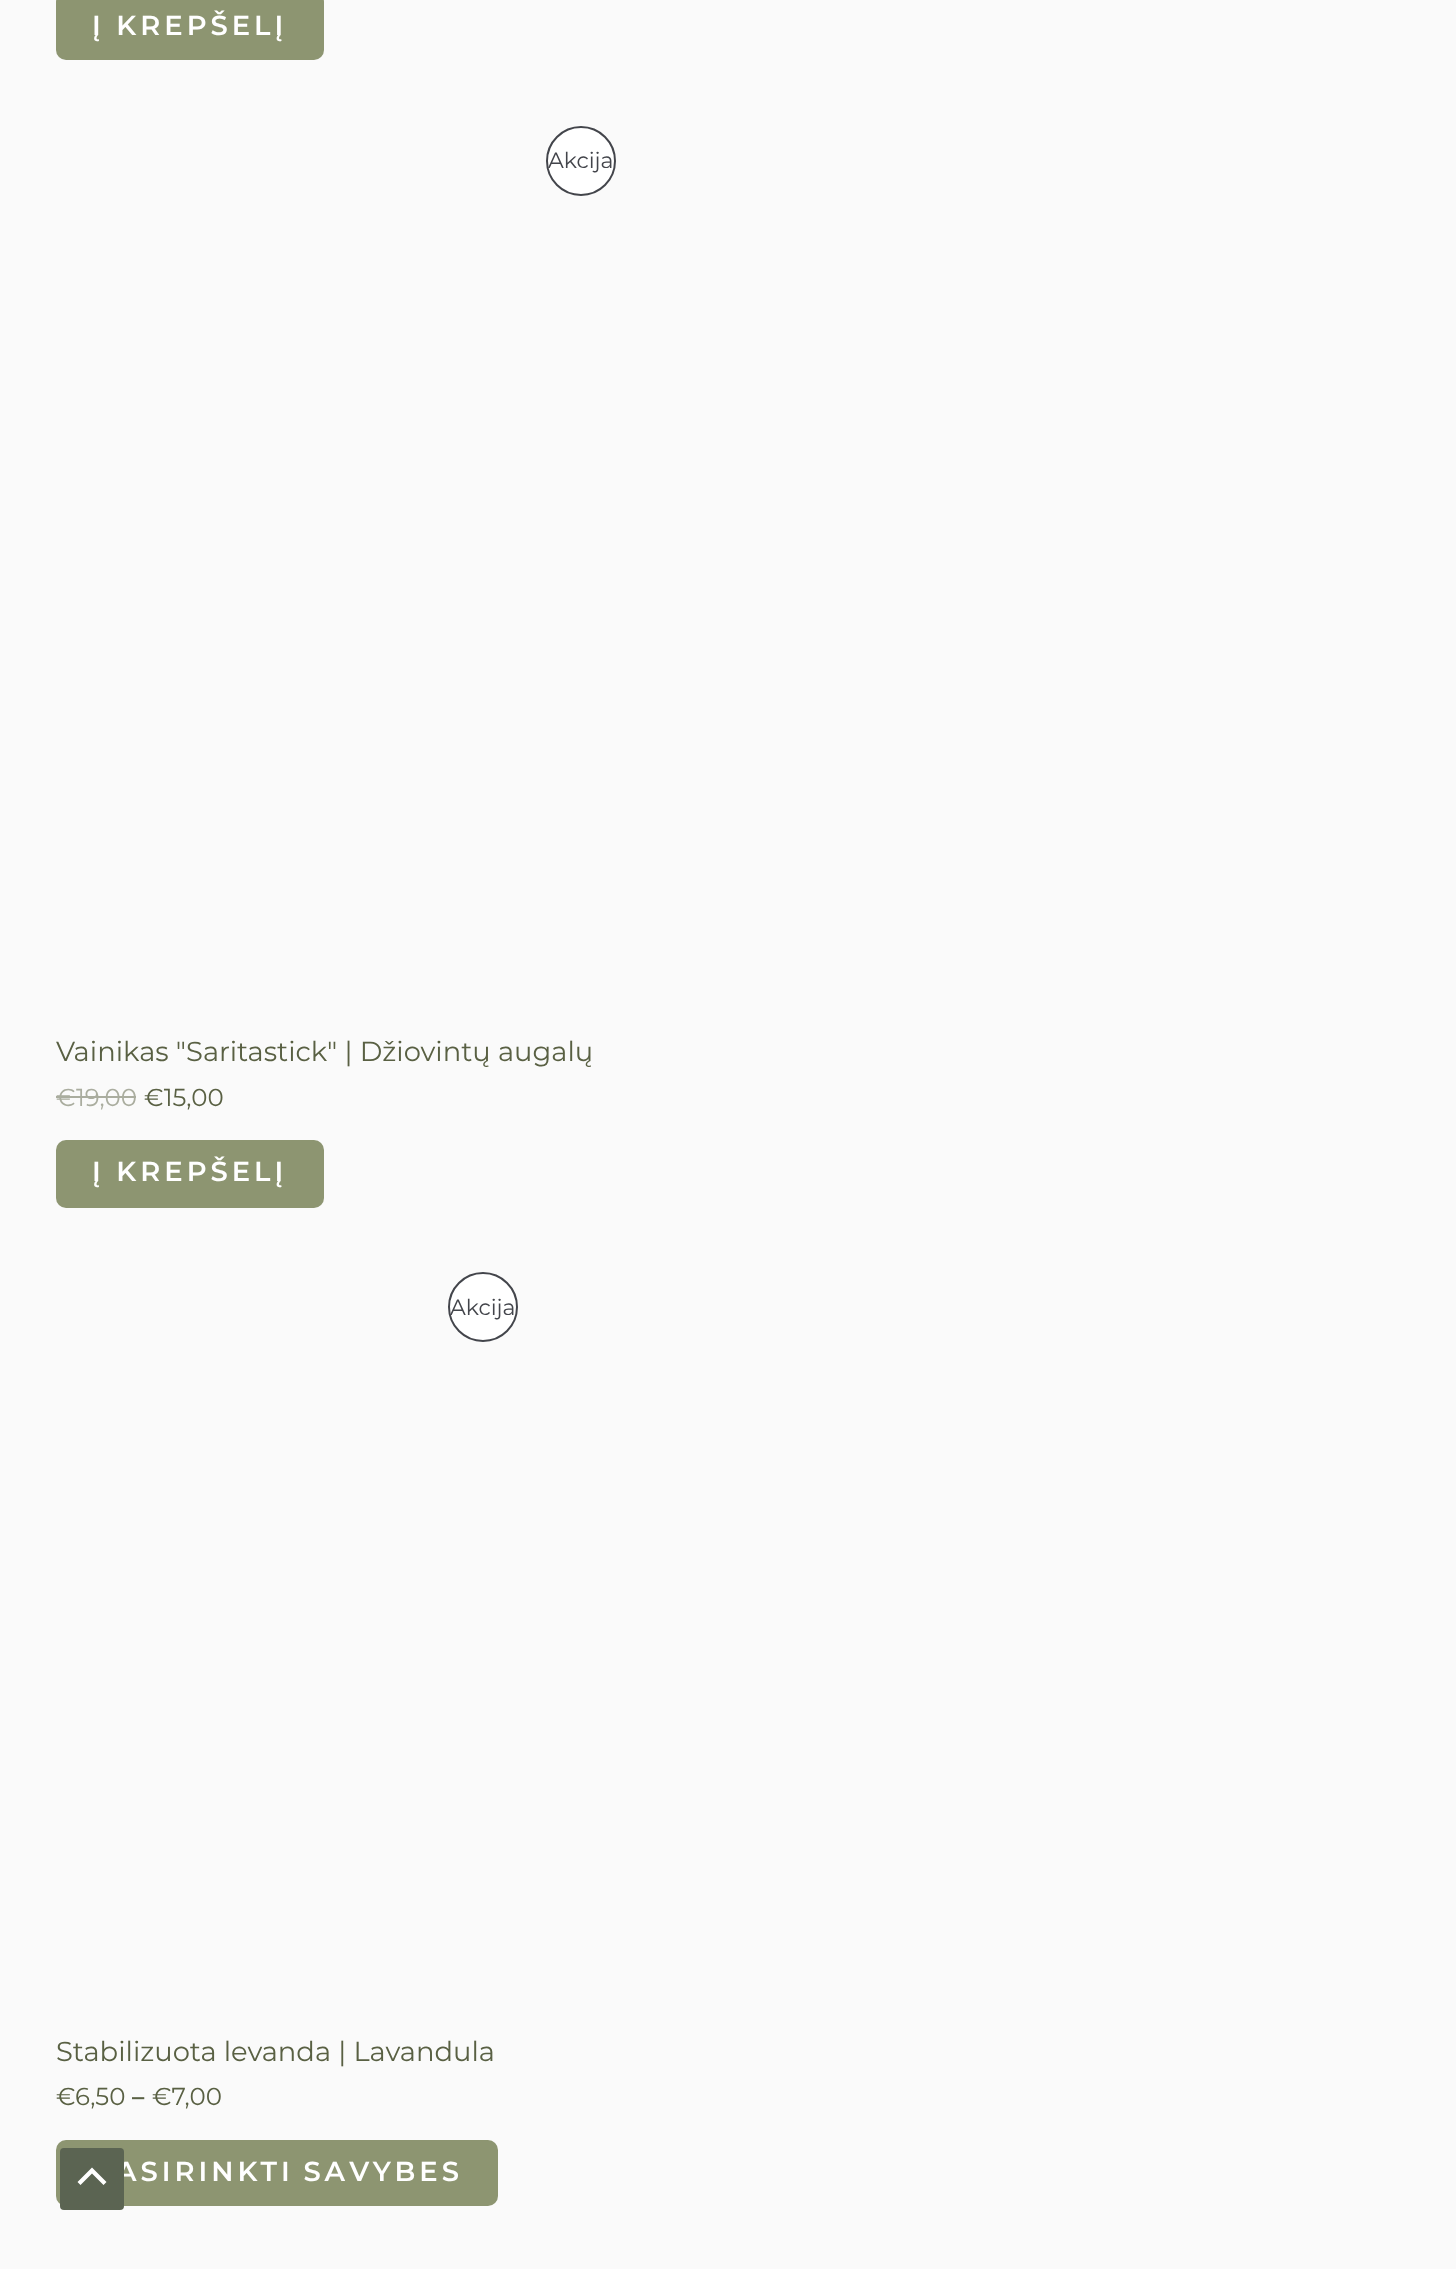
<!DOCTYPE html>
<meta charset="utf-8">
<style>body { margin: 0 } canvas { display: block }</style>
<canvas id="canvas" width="1456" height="2269"></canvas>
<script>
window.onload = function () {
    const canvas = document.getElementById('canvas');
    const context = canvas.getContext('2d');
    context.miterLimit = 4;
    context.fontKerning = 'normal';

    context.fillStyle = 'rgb(250, 250, 250)';
    context.fillRect(0, 0, 1456, 2269);
    context.fillStyle = 'rgb(141, 149, 113)';
    context.beginPath();
    context.roundRect(56, -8, 268, 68, 10);
    context.fill();
    context.fillStyle = 'rgb(255, 255, 255)';
    context.beginPath();
    context.arc(581, 161, 34, 0, 2 * Math.PI);
    context.fill();
    context.strokeStyle = 'rgb(67, 69, 75)';
    context.lineWidth = 2;
    context.stroke();
    context.fillStyle = 'rgb(170, 173, 159)';
    context.fillRect(56, 1096, 20, 2);
    context.fillRect(76, 1096, 60, 2);
    context.fillStyle = 'rgb(141, 149, 113)';
    context.beginPath();
    context.roundRect(56, 1140, 268, 68, 10);
    context.fill();
    context.fillStyle = 'rgb(255, 255, 255)';
    context.beginPath();
    context.arc(483, 1307, 34, 0, 2 * Math.PI);
    context.fill();
    context.stroke();
    context.fillStyle = 'rgb(141, 149, 113)';
    context.beginPath();
    context.roundRect(56, 2140, 442, 66, 10);
    context.fill();
    context.letterSpacing = '4px';
    context.font = '600 27.4px Montserrat';
    context.fillStyle = 'rgb(255, 255, 255)';
    context.fillText('Į KREPŠELĮ', 92, 35);
    context.letterSpacing = '0px';
    context.font = '22px Montserrat';
    context.fillStyle = 'rgb(67, 69, 75)';
    context.fillText('Akcija', 548, 168);
    context.font = '27.4px Montserrat';
    context.fillStyle = 'rgb(89, 96, 67)';
    context.fillText('Vainikas "Saritastick" | Džiovintų augalų', 56, 1061);
    context.font = '24.5px Montserrat';
    context.fillStyle = 'rgb(170, 173, 159)';
    context.fillText('€', 56, 1106);
    context.fillText('19,00', 76, 1106);
    context.fillStyle = 'rgb(89, 96, 67)';
    context.fillText('€15,00', 144, 1106);
    context.letterSpacing = '4px';
    context.font = '600 27.4px Montserrat';
    context.fillStyle = 'rgb(255, 255, 255)';
    context.fillText('Į KREPŠELĮ', 92, 1181);
    context.letterSpacing = '0px';
    context.font = '22px Montserrat';
    context.fillStyle = 'rgb(67, 69, 75)';
    context.fillText('Akcija', 450, 1315);
    context.font = '27.4px Montserrat';
    context.fillStyle = 'rgb(89, 96, 67)';
    context.fillText('Stabilizuota levanda | Lavandula', 56, 2061);
    context.font = '24.5px Montserrat';
    context.fillText('€', 56, 2105);
    context.fillText('6,50', 75, 2105);
    context.font = '600 24.5px Montserrat';
    context.fillText('–', 132, 2105);
    context.font = '24.5px Montserrat';
    context.fillText('€7,00', 152, 2105);
    context.letterSpacing = '4px';
    context.wordSpacing = '-2px';
    context.font = '600 27.4px Montserrat';
    context.fillStyle = 'rgb(255, 255, 255)';
    context.fillText('ASIRINKTI SAVYBES', 116, 2181);
    context.fillStyle = 'rgb(91, 100, 82)';
    context.beginPath();
    context.roundRect(60, 2148, 64, 62, 4);
    context.fill();
    context.fillStyle = 'rgb(255, 255, 255)';
    context.beginPath();
    context.moveTo(106.5, 2182);
    context.lineTo(92, 2167.5);
    context.lineTo(77.5, 2182);
    context.lineTo(80.5, 2185);
    context.lineTo(92, 2173.5);
    context.lineTo(103.5, 2185);
    context.closePath();
    context.fill();
};
</script>
